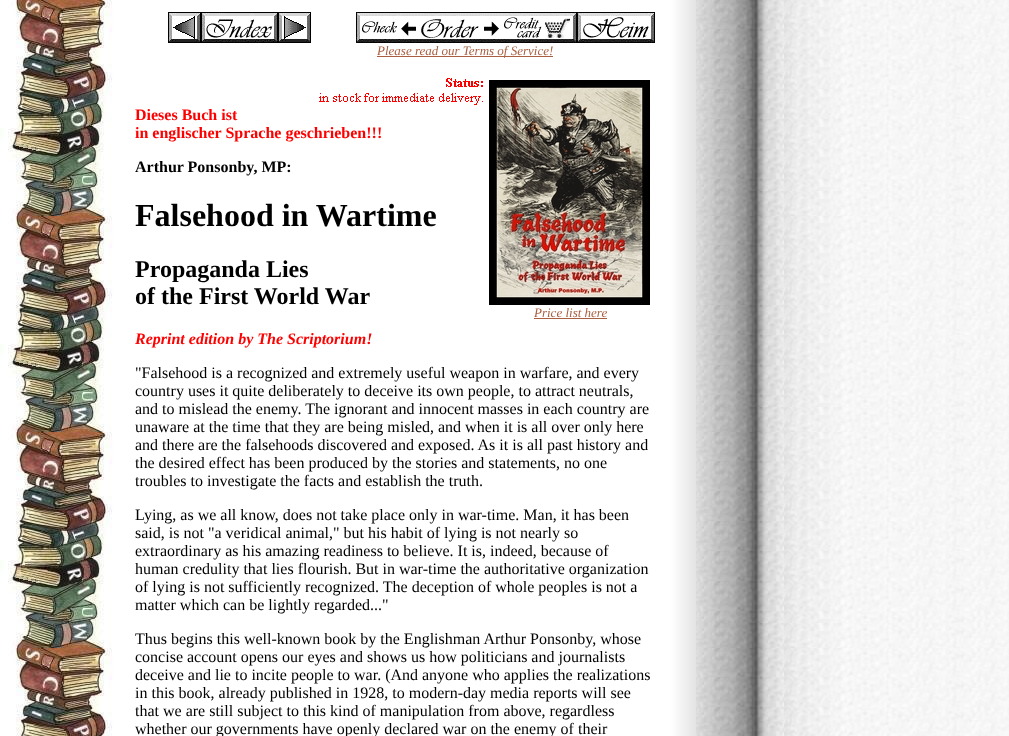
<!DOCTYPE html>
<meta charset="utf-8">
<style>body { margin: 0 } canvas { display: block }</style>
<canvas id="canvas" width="1009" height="736"></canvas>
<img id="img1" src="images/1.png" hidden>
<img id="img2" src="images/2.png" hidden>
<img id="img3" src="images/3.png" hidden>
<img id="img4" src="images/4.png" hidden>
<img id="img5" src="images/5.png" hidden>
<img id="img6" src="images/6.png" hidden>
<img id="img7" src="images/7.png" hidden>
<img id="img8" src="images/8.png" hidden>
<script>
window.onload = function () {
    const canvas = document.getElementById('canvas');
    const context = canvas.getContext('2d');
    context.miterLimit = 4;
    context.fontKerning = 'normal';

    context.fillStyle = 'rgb(255, 255, 255)';
    context.fillRect(0, 0, 1009, 736);
    context.drawImage(document.getElementById('img1'), 0, 0, 1009, 736);
    context.drawImage(document.getElementById('img2'), 168, 12, 33, 31);
    context.drawImage(document.getElementById('img3'), 201, 12, 77, 31);
    context.drawImage(document.getElementById('img4'), 278, 12, 33, 31);
    context.drawImage(document.getElementById('img5'), 356, 12, 221, 31);
    context.drawImage(document.getElementById('img6'), 577, 12, 78, 31);
    context.fillStyle = 'rgb(169, 96, 65)';
    context.fillRect(377, 56, 176, 1);
    context.drawImage(document.getElementById('img7'), 319, 78, 164, 27);
    context.drawImage(document.getElementById('img8'), 489, 80, 161, 225);
    context.fillRect(534, 318, 73, 1);
    context.font = 'italic 13px Liberation Serif';
    context.fillText('Please read our Terms of Service!', 377, 55);
    context.font = 'bold 16px Liberation Serif';
    context.fillStyle = 'rgb(255, 0, 0)';
    context.fillText('Dieses Buch ist', 135, 120);
    context.fillText('in englischer Sprache geschrieben!!!', 135, 138);
    context.fillStyle = 'rgb(0, 0, 0)';
    context.fillText('Arthur Ponsonby, MP:', 135, 172);
    context.font = 'bold 32px Liberation Serif';
    context.fillText('Falsehood in Wartime', 135, 226);
    context.font = 'bold 24px Liberation Serif';
    context.fillText('Propaganda Lies', 135, 277);
    context.fillText('of the First World War', 135, 304);
    context.font = 'italic 13px Liberation Serif';
    context.fillStyle = 'rgb(169, 96, 65)';
    context.fillText('Price list here', 534, 317);
    context.font = 'italic bold 16px Liberation Serif';
    context.fillStyle = 'rgb(255, 0, 0)';
    context.fillText('Reprint edition by The Scriptorium!', 135, 344);
    context.font = '16px Liberation Serif';
    context.fillStyle = 'rgb(0, 0, 0)';
    context.fillText('"Falsehood is a recognized and extremely useful weapon in warfare, and every', 135, 378);
    context.fillText('country uses it quite deliberately to deceive its own people, to attract neutrals,', 135, 396);
    context.fillText('and to mislead the enemy. The ignorant and innocent masses in each country are', 135, 414);
    context.fillText('unaware at the time that they are being misled, and when it is all over only here', 135, 432);
    context.fillText('and there are the falsehoods discovered and exposed. As it is all past history and', 135, 450);
    context.fillText('the desired effect has been produced by the stories and statements, no one', 135, 468);
    context.fillText('troubles to investigate the facts and establish the truth.', 135, 486);
    context.fillText('Lying, as we all know, does not take place only in war-time. Man, it has been', 135, 520);
    context.fillText('said, is not "a veridical animal," but his habit of lying is not nearly so', 135, 538);
    context.fillText('extraordinary as his amazing readiness to believe. It is, indeed, because of', 135, 556);
    context.fillText('human credulity that lies flourish. But in war-time the authoritative organization', 135, 574);
    context.fillText('of lying is not sufficiently recognized. The deception of whole peoples is not a', 135, 592);
    context.fillText('matter which can be lightly regarded..."', 135, 610);
    context.fillText('Thus begins this well-known book by the Englishman Arthur Ponsonby, whose', 135, 644);
    context.fillText('concise account opens our eyes and shows us how politicians and journalists', 135, 662);
    context.fillText('deceive and lie to incite people to war. (And anyone who applies the realizations', 135, 680);
    context.fillText('in this book, already published in 1928, to modern-day media reports will see', 135, 698);
    context.fillText('that we are still subject to this kind of manipulation from above, regardless', 135, 716);
    context.fillText('whether our governments have openly declared war on the enemy of their', 135, 734);
};
</script>
